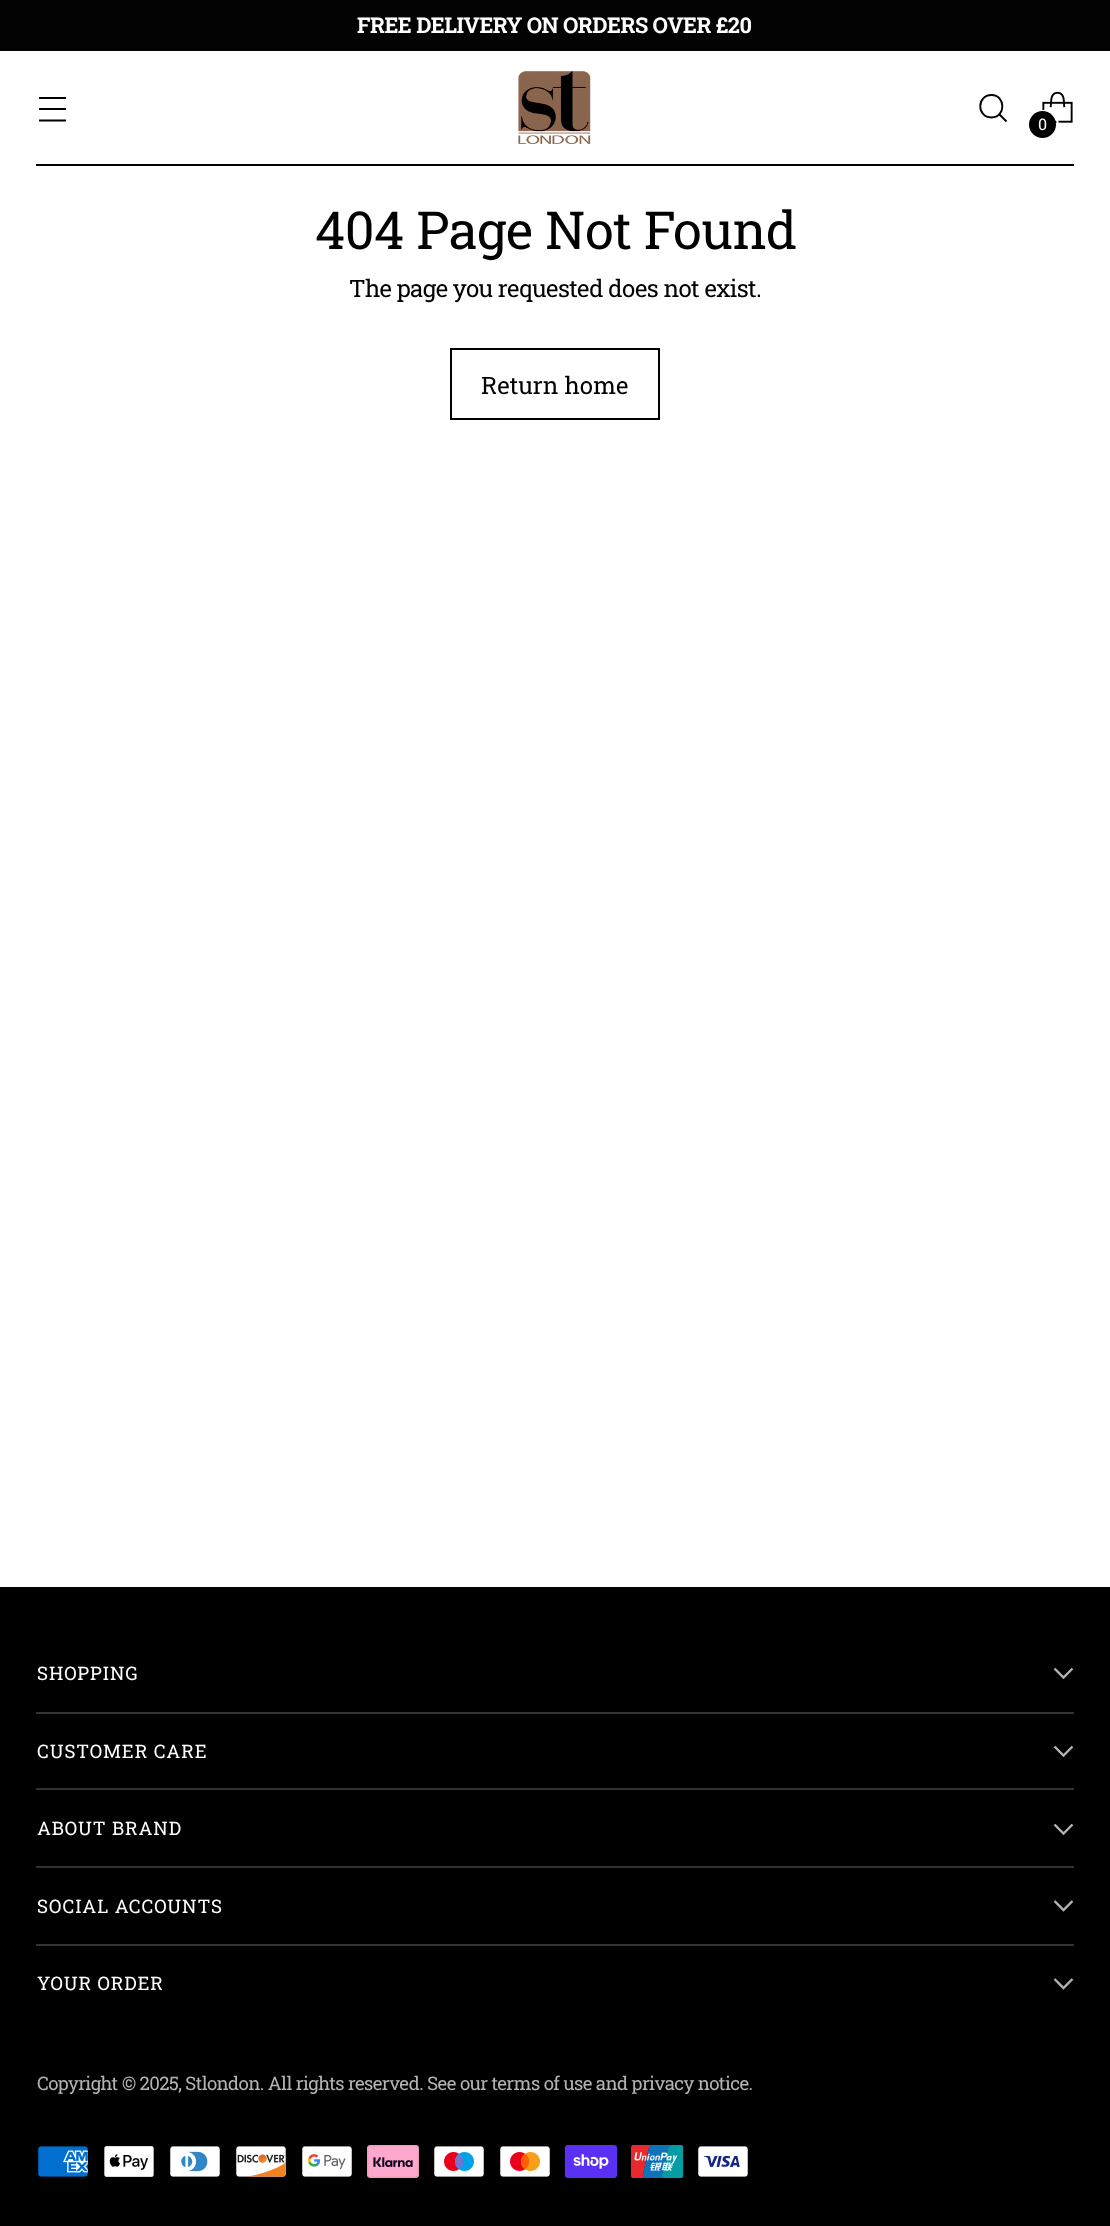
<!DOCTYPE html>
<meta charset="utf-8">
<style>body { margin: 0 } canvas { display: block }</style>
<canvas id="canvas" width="1110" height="2226"></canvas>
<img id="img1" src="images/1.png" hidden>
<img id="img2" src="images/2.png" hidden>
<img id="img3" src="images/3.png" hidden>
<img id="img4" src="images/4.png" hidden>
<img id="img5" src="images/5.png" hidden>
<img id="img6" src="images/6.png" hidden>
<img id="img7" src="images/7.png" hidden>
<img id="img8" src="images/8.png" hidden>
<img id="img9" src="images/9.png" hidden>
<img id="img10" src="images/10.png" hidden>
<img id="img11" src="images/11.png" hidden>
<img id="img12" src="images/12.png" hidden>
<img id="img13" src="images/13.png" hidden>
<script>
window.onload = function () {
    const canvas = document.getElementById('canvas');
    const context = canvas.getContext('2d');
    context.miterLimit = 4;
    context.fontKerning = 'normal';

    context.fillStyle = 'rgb(255, 255, 255)';
    context.fillRect(0, 0, 1110, 2226);
    context.fillStyle = 'rgb(3, 3, 3)';
    context.fillRect(0, 0, 1110, 51);
    context.fillStyle = 'rgb(0, 0, 0)';
    context.fillRect(36, 164, 1038, 2);
    context.beginPath();
    context.moveTo(39, 109);
    context.lineTo(66, 109);
    context.moveTo(39, 98);
    context.lineTo(66, 98);
    context.moveTo(39, 120.5);
    context.lineTo(66, 120.5);
    context.strokeStyle = 'rgb(0, 0, 0)';
    context.lineWidth = 1.9;
    context.stroke();
    context.drawImage(document.getElementById('img1'), 518, 71, 73, 74);
    context.beginPath();
    context.moveTo(991.5, 117.5);
    context.bezierCurveTo(1006, 117.5, 1006, 95, 991.5, 95);
    context.bezierCurveTo(976.5, 95, 976.5, 117.5, 991.5, 117.5);
    context.closePath();
    context.lineCap = 'round';
    context.stroke();
    context.beginPath();
    context.moveTo(999.5, 114.5);
    context.lineTo(1006.5, 121.5);
    context.lineCap = 'butt';
    context.stroke();
    context.drawImage(document.getElementById('img2'), 1042, 91, 31, 32);
    context.beginPath();
    context.arc(1043.5, 125.5, 14.5, 0, 2 * Math.PI);
    context.strokeStyle = 'rgb(255, 255, 255)';
    context.lineWidth = 2;
    context.stroke();
    context.beginPath();
    context.arc(1042.5, 124.5, 13.5, 0, 2 * Math.PI);
    context.fill();
    context.strokeStyle = 'rgb(0, 0, 0)';
    context.strokeRect(451, 349, 208, 70);
    context.fillRect(0, 1587, 1110, 639);
    context.fillStyle = 'rgb(51, 51, 51)';
    context.fillRect(36, 1712, 1038, 2);
    context.beginPath();
    context.moveTo(1054.5, 1668.5);
    context.lineTo(1063.5, 1677.5);
    context.lineTo(1072.5, 1668.5);
    context.strokeStyle = 'rgb(179, 179, 179)';
    context.lineWidth = 2.4;
    context.stroke();
    context.fillRect(36, 1788, 1038, 2);
    context.beginPath();
    context.moveTo(1054.5, 1746.5);
    context.lineTo(1063.5, 1755.5);
    context.lineTo(1072.5, 1746.5);
    context.stroke();
    context.fillRect(36, 1866, 1038, 2);
    context.beginPath();
    context.moveTo(1054.5, 1824.5);
    context.lineTo(1063.5, 1833.5);
    context.lineTo(1072.5, 1824.5);
    context.stroke();
    context.fillRect(36, 1944, 1038, 2);
    context.beginPath();
    context.moveTo(1054.5, 1901);
    context.lineTo(1063.5, 1910);
    context.lineTo(1072.5, 1901);
    context.stroke();
    context.beginPath();
    context.moveTo(1054.5, 1979);
    context.lineTo(1063.5, 1988);
    context.lineTo(1072.5, 1979);
    context.stroke();
    context.drawImage(document.getElementById('img3'), 38, 2146, 50, 31);
    context.drawImage(document.getElementById('img4'), 104, 2146, 50, 31);
    context.drawImage(document.getElementById('img5'), 170, 2146, 50, 31);
    context.drawImage(document.getElementById('img6'), 236, 2146, 50, 31);
    context.drawImage(document.getElementById('img7'), 302, 2146, 50, 31);
    context.drawImage(document.getElementById('img8'), 367, 2145, 52, 33);
    context.drawImage(document.getElementById('img9'), 434, 2146, 50, 31);
    context.drawImage(document.getElementById('img10'), 500, 2146, 50, 31);
    context.drawImage(document.getElementById('img11'), 564, 2145, 54, 33);
    context.drawImage(document.getElementById('img12'), 631, 2145, 53, 33);
    context.drawImage(document.getElementById('img13'), 698, 2146, 50, 31);
    context.letterSpacing = '-0.5px';
    context.font = 'bold 21.8px Roboto Slab';
    context.fillStyle = 'rgb(255, 255, 255)';
    context.fillText('FREE DELIVERY ON ORDERS OVER £20', 357, 33);
    context.letterSpacing = '-0.6px';
    context.font = '16px Roboto Slab';
    context.fillText('0', 1038, 130);
    context.letterSpacing = '-0.5px';
    context.font = '52.25px Roboto Slab';
    context.fillStyle = 'rgb(0, 0, 0)';
    context.fillText('404 Page Not Found', 315, 249);
    context.letterSpacing = '-0.6px';
    context.font = '24px Roboto Slab';
    context.fillText('The page you requested does not exist.', 349, 297);
    context.letterSpacing = '0px';
    context.fillText('Return home', 481, 394);
    context.letterSpacing = '0.9px';
    context.font = '18.65px Roboto Slab';
    context.fillStyle = 'rgb(255, 255, 255)';
    context.fillText('SHOPPING', 37, 1680);
    context.fillText('CUSTOMER CARE', 37, 1758);
    context.fillText('ABOUT BRAND', 37, 1835);
    context.fillText('SOCIAL ACCOUNTS', 37, 1913);
    context.fillText('YOUR ORDER', 37, 1990);
    context.letterSpacing = '-0.6px';
    context.fillStyle = 'rgb(179, 179, 179)';
    context.fillText('Copyright © 2025, Stlondon. All rights reserved. See our terms of use and privacy notice.', 37, 2090);
};
</script>
